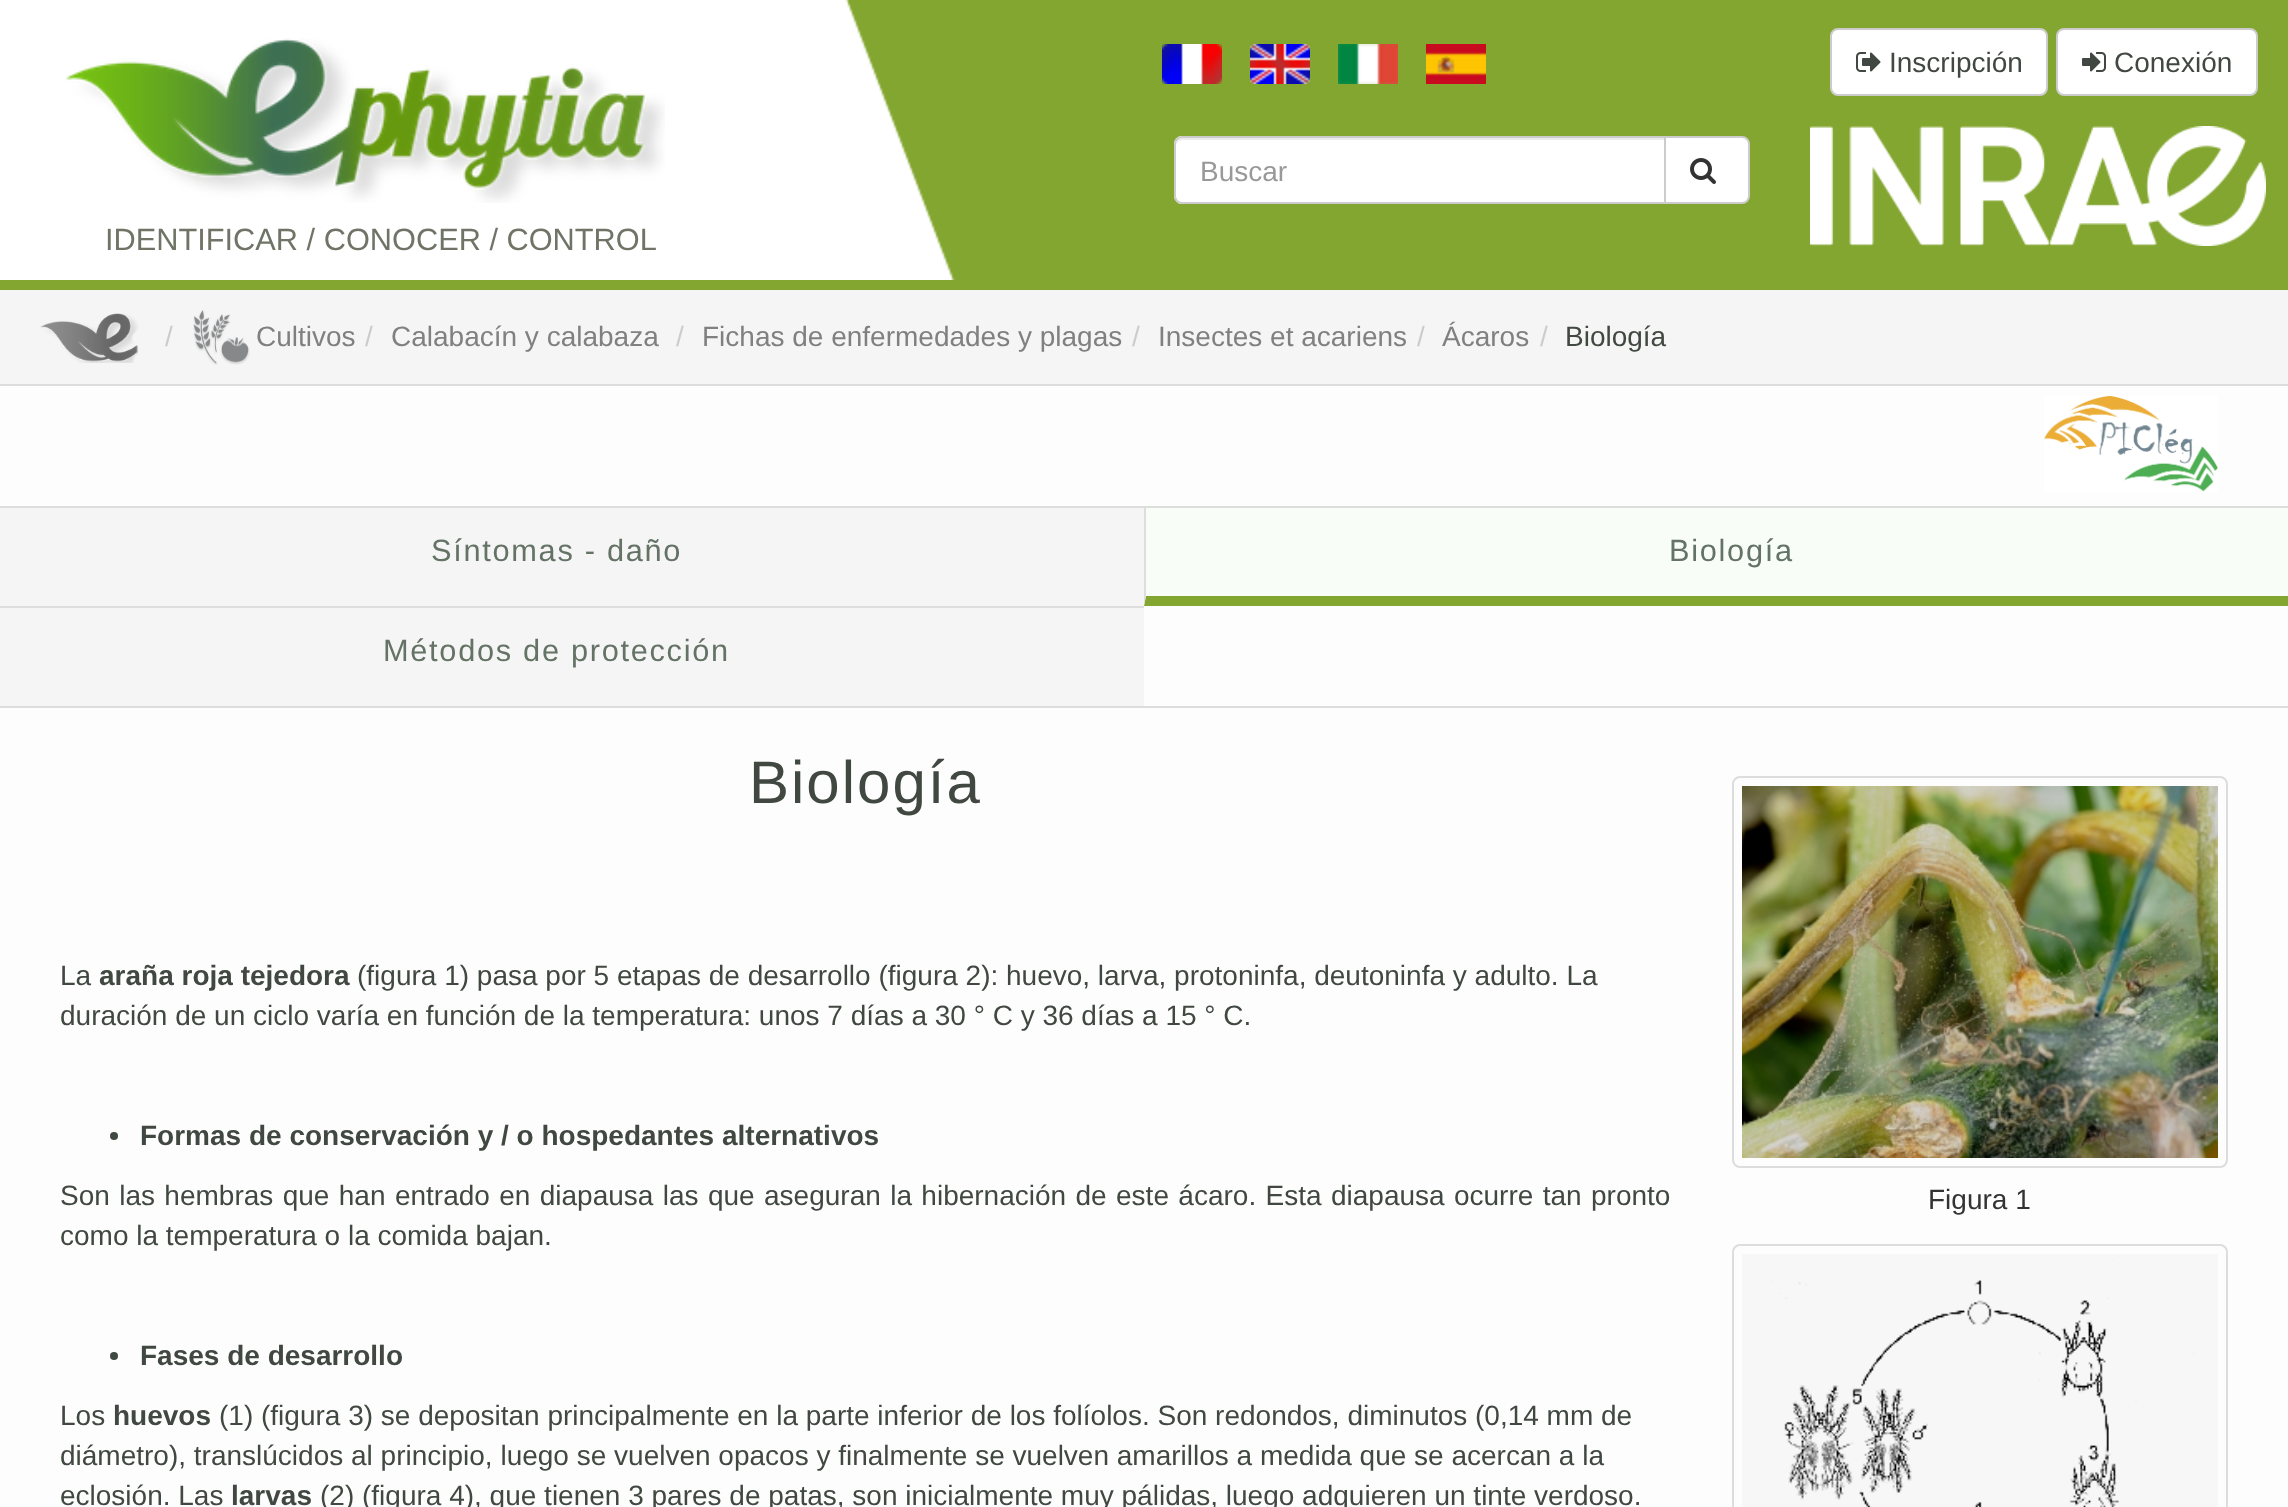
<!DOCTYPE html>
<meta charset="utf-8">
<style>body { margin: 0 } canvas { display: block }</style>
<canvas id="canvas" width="2288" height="1507"></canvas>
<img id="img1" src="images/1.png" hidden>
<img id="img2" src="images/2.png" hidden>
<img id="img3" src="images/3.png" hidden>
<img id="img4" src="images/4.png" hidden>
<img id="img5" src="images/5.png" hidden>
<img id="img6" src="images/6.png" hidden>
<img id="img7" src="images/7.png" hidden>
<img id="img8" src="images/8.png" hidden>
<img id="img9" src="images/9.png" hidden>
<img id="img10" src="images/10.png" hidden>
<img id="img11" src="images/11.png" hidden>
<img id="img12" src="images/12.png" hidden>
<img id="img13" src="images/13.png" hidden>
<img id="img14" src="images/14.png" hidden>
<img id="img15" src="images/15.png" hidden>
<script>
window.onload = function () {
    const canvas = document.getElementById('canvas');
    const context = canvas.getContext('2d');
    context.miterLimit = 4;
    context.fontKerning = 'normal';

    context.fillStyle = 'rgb(253, 253, 253)';
    context.fillRect(0, 0, 2288, 1507);
    context.fillStyle = 'rgb(130, 166, 47)';
    context.fillRect(0, 0, 2288, 290);
    context.drawImage(document.getElementById('img1'), 762, 0, 193, 280);
    context.drawImage(document.getElementById('img2'), 1162, 44, 60, 40);
    context.drawImage(document.getElementById('img3'), 1250, 44, 60, 40);
    context.drawImage(document.getElementById('img4'), 1338, 44, 60, 40);
    context.drawImage(document.getElementById('img5'), 1426, 44, 60, 40);
    context.fillStyle = 'rgb(255, 255, 255)';
    context.beginPath();
    context.roundRect(1831, 29, 216, 66, 7);
    context.fill();
    context.strokeStyle = 'rgb(204, 204, 204)';
    context.lineWidth = 2;
    context.stroke();
    context.drawImage(document.getElementById('img6'), 1856, 52, 25, 20);
    context.beginPath();
    context.roundRect(2057, 29, 200, 66, 7);
    context.fill();
    context.stroke();
    context.drawImage(document.getElementById('img7'), 2082, 52, 24, 20);
    context.beginPath();
    context.roundRect(1174, 136, 492, 68, [8, 0, 0, 8]);
    context.fill();
    context.fillStyle = 'rgb(236, 236, 236)';
    context.beginPath();
    context.moveTo(1182, 140);
    context.lineTo(1664, 140);
    context.lineTo(1664, 138);
    context.lineTo(1182, 138);
    context.bezierCurveTo(1177, 138, 1176, 142, 1176, 146);
    context.bezierCurveTo(1176, 143, 1179, 140, 1182, 140);
    context.closePath();
    context.fill();
    context.beginPath();
    context.roundRect(1175, 137, 490, 66, [7, 0, 0, 7]);
    context.stroke();
    context.fillStyle = 'rgb(255, 255, 255)';
    context.beginPath();
    context.roundRect(1665, 137, 84, 66, [0, 7, 7, 0]);
    context.fill();
    context.stroke();
    context.drawImage(document.getElementById('img8'), 1690, 158, 26, 26);
    context.drawImage(document.getElementById('img9'), 1810, 126, 456, 120);
    context.fillRect(0, 0, 762, 280);
    context.drawImage(document.getElementById('img10'), 65, 38, 600, 165);
    context.fillStyle = 'rgb(221, 221, 221)';
    context.fillRect(0, 384, 2288, 2);
    context.fillStyle = 'rgb(245, 245, 245)';
    context.fillRect(0, 290, 2288, 94);
    context.drawImage(document.getElementById('img11'), 40, 313, 99, 50);
    context.drawImage(document.getElementById('img12'), 193, 310, 57, 55);
    context.drawImage(document.getElementById('img13'), 2044, 396, 174, 96);
    context.fillStyle = 'rgb(221, 221, 221)';
    context.fillRect(0, 706, 2288, 2);
    context.fillStyle = 'rgb(245, 245, 245)';
    context.fillRect(0, 508, 1144, 98);
    context.fillStyle = 'rgb(221, 221, 221)';
    context.fillRect(0, 506, 2288, 2);
    context.fillStyle = 'rgb(130, 166, 47)';
    context.beginPath();
    context.moveTo(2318, 606);
    context.lineTo(1144, 606);
    context.lineTo(1146, 596);
    context.lineTo(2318, 596);
    context.closePath();
    context.fill();
    context.fillStyle = 'rgb(221, 221, 221)';
    context.beginPath();
    context.moveTo(1144, 606);
    context.lineTo(1144, 506);
    context.lineTo(1146, 508);
    context.lineTo(1146, 596);
    context.closePath();
    context.fill();
    context.fillStyle = 'rgb(248, 253, 247)';
    context.fillRect(1146, 508, 1142, 88);
    context.fillStyle = 'rgb(245, 245, 245)';
    context.fillRect(0, 608, 1144, 98);
    context.fillStyle = 'rgb(221, 221, 221)';
    context.fillRect(0, 606, 1144, 2);
    context.fillStyle = 'rgb(65, 72, 65)';
    context.beginPath();
    context.arc(114, 1136, 4, 0, 2 * Math.PI);
    context.fill();
    context.beginPath();
    context.arc(114, 1356, 4, 0, 2 * Math.PI);
    context.fill();
    context.beginPath();
    context.roundRect(1733, 777, 494, 390, 7);
    context.strokeStyle = 'rgb(221, 221, 221)';
    context.stroke();
    context.drawImage(document.getElementById('img14'), 1742, 786, 476, 372);
    context.beginPath();
    context.roundRect(1733, 1245, 494, 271, 7);
    context.stroke();
    context.drawImage(document.getElementById('img15'), 1742, 1254, 476, 253);
    context.font = '28px Liberation Sans';
    context.fillText('Inscripción', 1889, 72);
    context.fillText('Conexión', 2114, 72);
    context.fillStyle = 'rgb(153, 153, 153)';
    context.fillText('Buscar', 1200, 181);
    context.font = '30.75px Liberation Sans';
    context.fillStyle = 'rgb(112, 116, 103)';
    context.fillText('IDENTIFICAR / CONOCER / CONTROL', 105, 250);
    context.font = '28px Liberation Sans';
    context.fillStyle = 'rgb(204, 204, 204)';
    context.fillText('/', 165, 346);
    context.fillStyle = 'rgb(128, 128, 128)';
    context.fillText('Cultivos', 256, 346);
    context.fillStyle = 'rgb(204, 204, 204)';
    context.fillText('/', 365, 346);
    context.fillStyle = 'rgb(128, 128, 128)';
    context.fillText('Calabacín y calabaza', 391, 346);
    context.fillStyle = 'rgb(204, 204, 204)';
    context.fillText('/', 676, 346);
    context.fillStyle = 'rgb(128, 128, 128)';
    context.fillText('Fichas de enfermedades y plagas', 702, 346);
    context.fillStyle = 'rgb(204, 204, 204)';
    context.fillText('/', 1132, 346);
    context.fillStyle = 'rgb(128, 128, 128)';
    context.fillText('Insectes et acariens', 1158, 346);
    context.fillStyle = 'rgb(204, 204, 204)';
    context.fillText('/', 1417, 346);
    context.fillStyle = 'rgb(128, 128, 128)';
    context.fillText('Ácaros', 1442, 346);
    context.fillStyle = 'rgb(204, 204, 204)';
    context.fillText('/', 1540, 346);
    context.fillStyle = 'rgb(65, 72, 65)';
    context.fillText('Biología', 1565, 346);
    context.letterSpacing = '1.7px';
    context.font = '30.75px Liberation Sans';
    context.fillStyle = 'rgb(100, 115, 101)';
    context.fillText('Síntomas - daño', 431, 561);
    context.fillText('Biología', 1669, 561);
    context.fillText('Métodos de protección', 383, 661);
    context.letterSpacing = '2px';
    context.font = '60px Liberation Sans';
    context.fillStyle = 'rgb(65, 72, 65)';
    context.fillText('Biología', 749, 803);
    context.letterSpacing = '0px';
    context.font = '28px Liberation Sans';
    context.fillText('La', 60, 985);
    context.font = 'bold 28px Liberation Sans';
    context.fillText('araña roja tejedora', 99, 985);
    context.font = '28px Liberation Sans';
    context.fillText('(figura 1) pasa por 5 etapas de desarrollo (figura 2): huevo, larva, protoninfa, deutoninfa y adulto. La', 357, 985);
    context.fillText('duración de un ciclo varía en función de la temperatura: unos 7 días a 30 ° C y 36 días a 15 ° C.', 60, 1025);
    context.font = 'bold 28px Liberation Sans';
    context.fillText('Formas de conservación y / o hospedantes alternativos', 140, 1145);
    context.wordSpacing = '1.6px';
    context.font = '28px Liberation Sans';
    context.fillText('Son las hembras que han entrado en diapausa las que aseguran la hibernación de este ácaro. Esta diapausa ocurre tan pronto', 60, 1205);
    context.wordSpacing = '0px';
    context.fillText('como la temperatura o la comida bajan.', 60, 1245);
    context.font = 'bold 28px Liberation Sans';
    context.fillText('Fases de desarrollo', 140, 1365);
    context.font = '28px Liberation Sans';
    context.fillText('Los', 60, 1425);
    context.font = 'bold 28px Liberation Sans';
    context.fillText('huevos', 113, 1425);
    context.font = '28px Liberation Sans';
    context.fillText('(1) (figura 3) se depositan principalmente en la parte inferior de los folíolos. Son redondos, diminutos (0,14 mm de', 219, 1425);
    context.fillText('diámetro), translúcidos al principio, luego se vuelven opacos y finalmente se vuelven amarillos a medida que se acercan a la', 60, 1465);
    context.fillText('eclosión. Las', 60, 1505);
    context.font = 'bold 28px Liberation Sans';
    context.fillText('larvas', 231, 1505);
    context.font = '28px Liberation Sans';
    context.fillText('(2) (figura 4), que tienen 3 pares de patas, son inicialmente muy pálidas, luego adquieren un tinte verdoso.', 320, 1505);
    context.fillStyle = 'rgb(51, 51, 51)';
    context.fillText('Figura 1', 1928, 1209);
};
</script>
